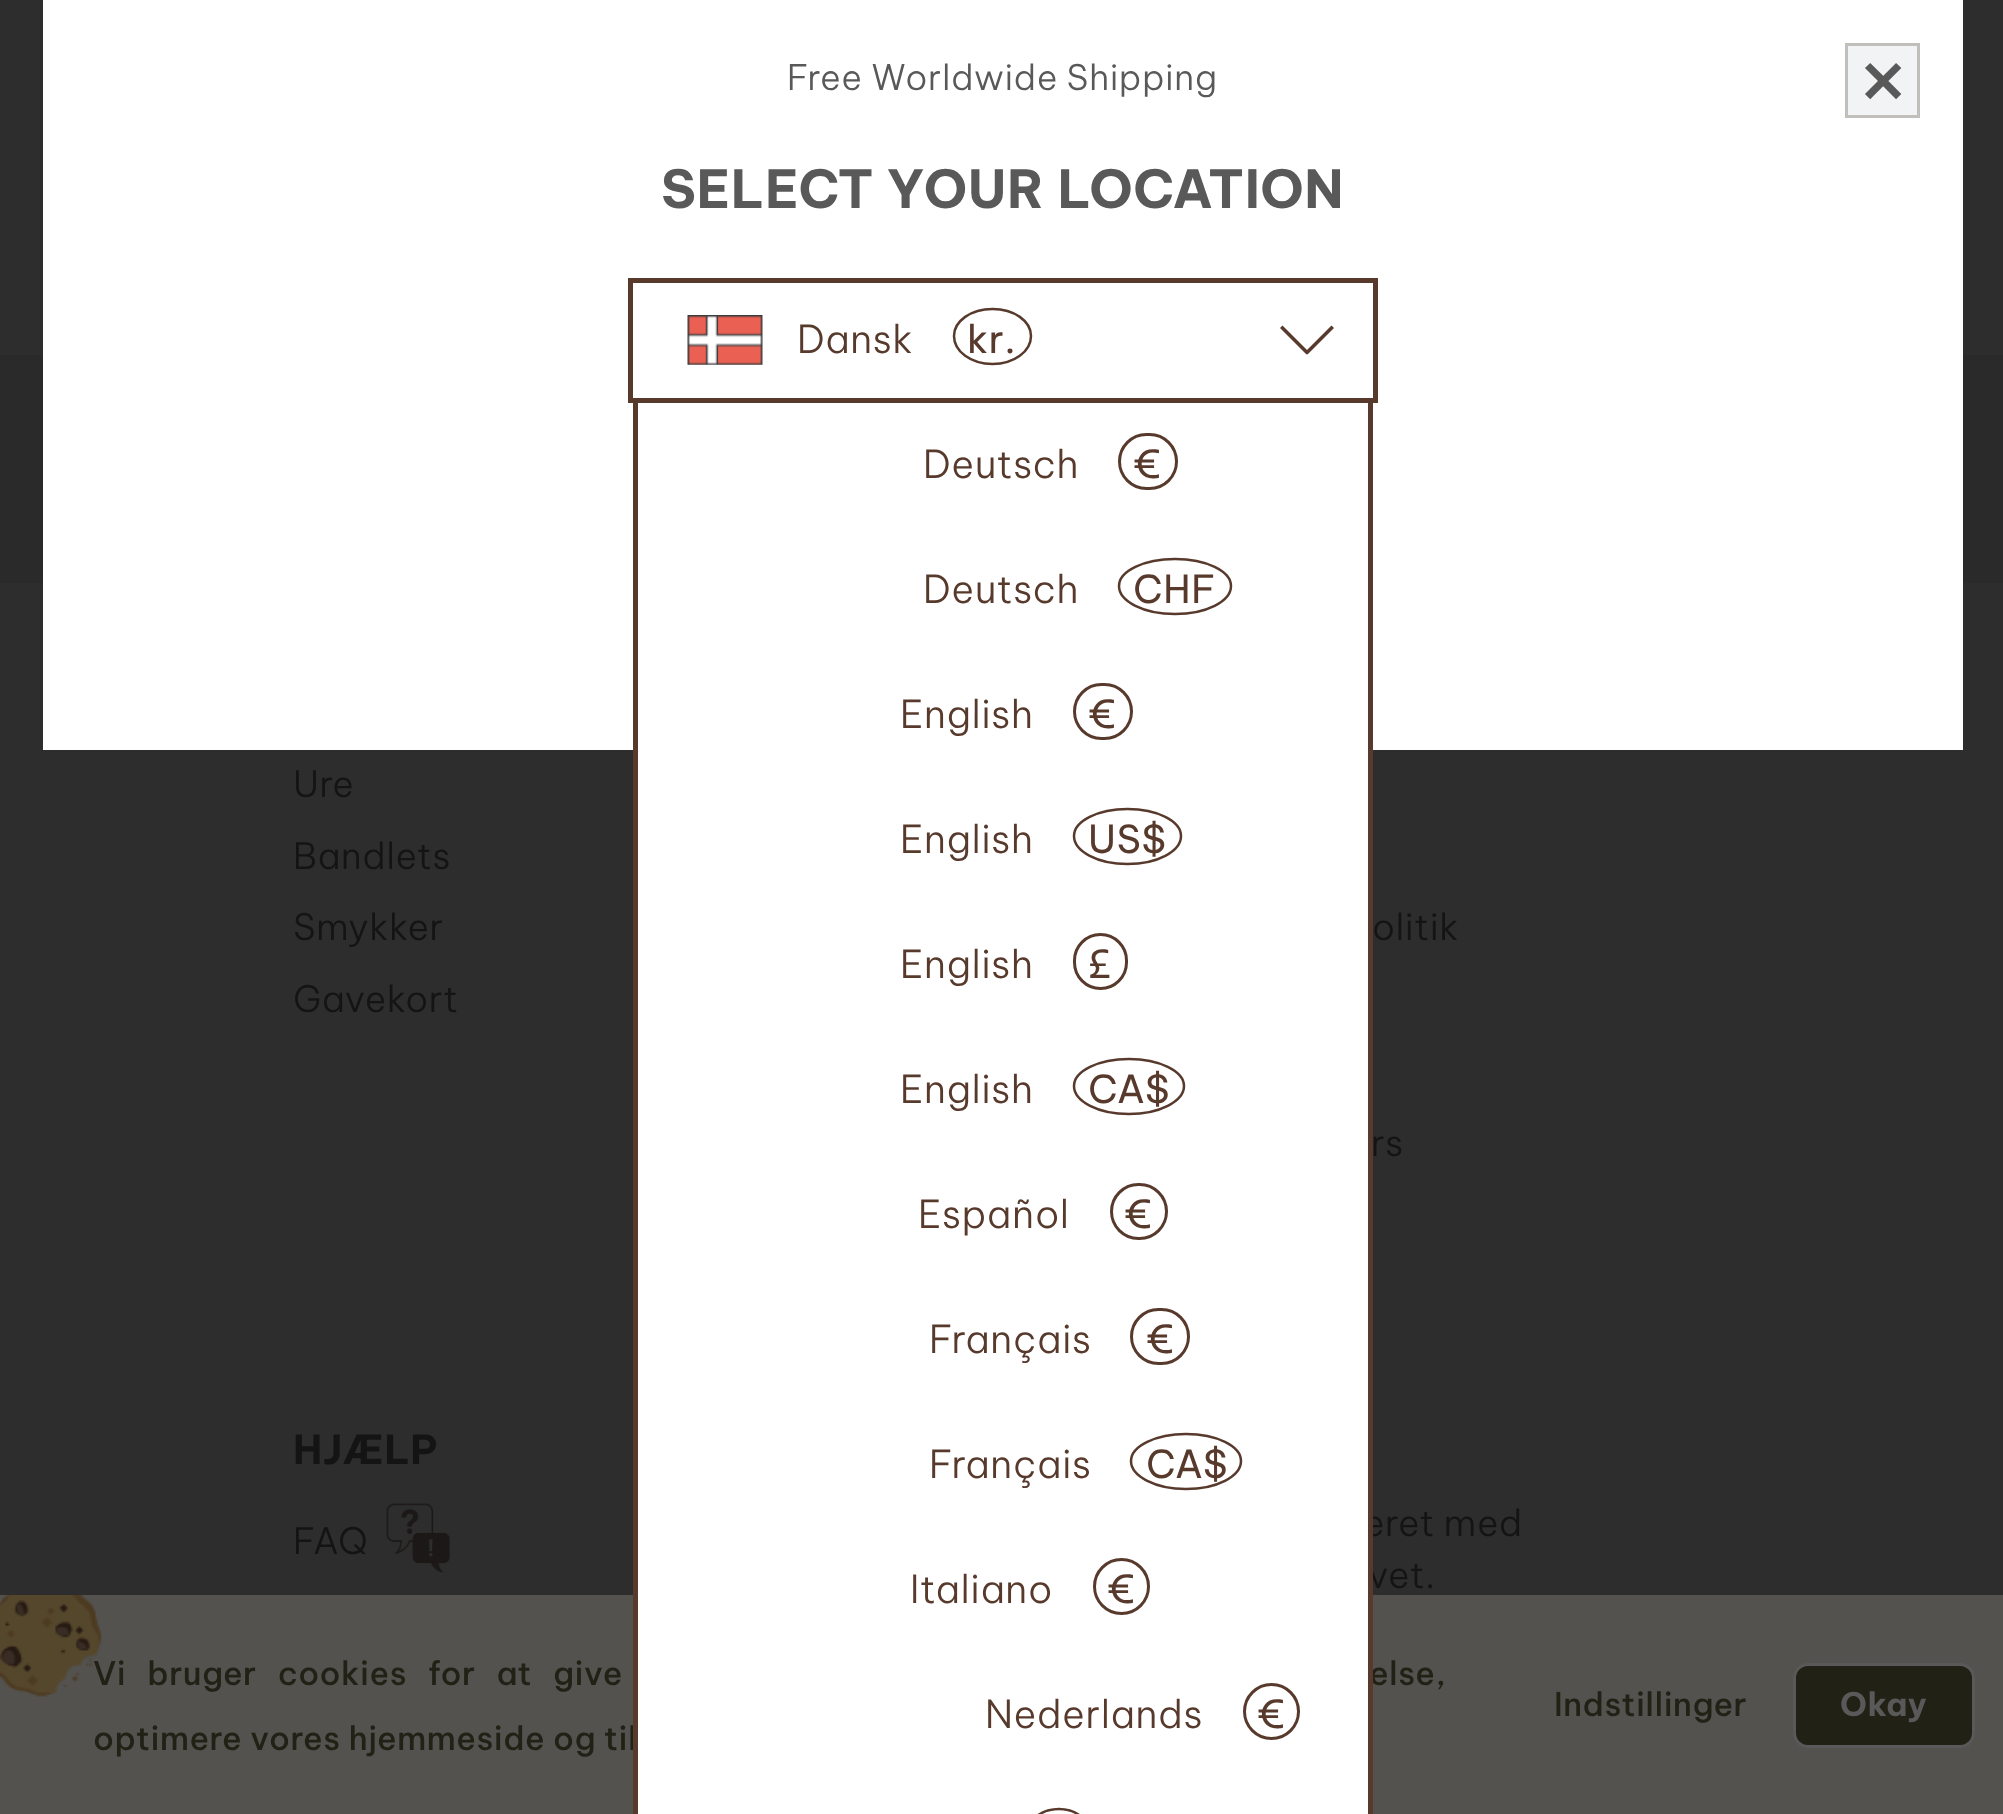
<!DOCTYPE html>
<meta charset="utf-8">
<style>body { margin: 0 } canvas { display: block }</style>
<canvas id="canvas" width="2003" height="1814"></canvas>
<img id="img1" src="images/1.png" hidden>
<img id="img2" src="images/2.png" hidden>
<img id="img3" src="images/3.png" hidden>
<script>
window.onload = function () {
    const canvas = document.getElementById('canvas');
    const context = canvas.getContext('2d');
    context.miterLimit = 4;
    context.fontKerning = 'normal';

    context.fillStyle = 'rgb(45, 45, 45)';
    context.fillRect(0, 0, 2003, 1814);
    context.fillStyle = 'rgb(42, 42, 42)';
    context.fillRect(0, 355, 2003, 228);
    context.fillStyle = 'rgb(255, 255, 255)';
    context.fillRect(43, 0, 1920, 750);
    context.fillStyle = 'rgb(242, 243, 244)';
    context.beginPath();
    context.rect(1846.5, 44.5, 72, 72);
    context.fill();
    context.strokeStyle = 'rgb(193, 191, 187)';
    context.lineWidth = 3;
    context.stroke();
    context.fillStyle = 'rgb(88, 58, 45)';
    context.fillRect(1373, 278, 5, 125);
    context.fillRect(628, 278, 5, 125);
    context.fillRect(633, 278, 740, 5);
    context.fillRect(633, 398, 740, 5);
    context.drawImage(document.getElementById('img1'), 687, 315, 76, 50);
    context.beginPath();
    context.moveTo(992.5, 309);
    context.bezierCurveTo(1014, 309, 1031, 321, 1031, 336);
    context.bezierCurveTo(1031, 351.5, 1014, 364, 992.5, 364);
    context.bezierCurveTo(971, 364, 954, 351.5, 954, 336);
    context.bezierCurveTo(954, 321, 971, 309, 992.5, 309);
    context.closePath();
    context.strokeStyle = 'rgb(88, 58, 45)';
    context.lineWidth = 2.5;
    context.stroke();
    context.beginPath();
    context.moveTo(1280, 328);
    context.lineTo(1282.5, 325.5);
    context.lineTo(1309, 352);
    context.lineTo(1306.5, 354.5);
    context.closePath();
    context.fill();
    context.beginPath();
    context.moveTo(1331.5, 325.5);
    context.lineTo(1334, 328);
    context.lineTo(1307.5, 354.5);
    context.lineTo(1305, 352);
    context.closePath();
    context.fill();
    context.beginPath();
    context.roundRect(1119.5, 434.5, 57, 54, 27);
    context.lineWidth = 3;
    context.stroke();
    context.beginPath();
    context.moveTo(1175, 559);
    context.bezierCurveTo(1206, 559, 1231, 571, 1231, 586);
    context.bezierCurveTo(1231, 601.5, 1206, 614, 1175, 614);
    context.bezierCurveTo(1144, 614, 1119, 601.5, 1119, 586);
    context.bezierCurveTo(1119, 571, 1144, 559, 1175, 559);
    context.closePath();
    context.lineWidth = 2.5;
    context.stroke();
    context.beginPath();
    context.roundRect(1074.5, 684.5, 57, 54, 27);
    context.lineWidth = 3;
    context.stroke();
    context.drawImage(document.getElementById('img2'), 386, 1503, 65, 70);
    context.fillStyle = 'rgb(83, 82, 79)';
    context.fillRect(0, 1595, 2003, 219);
    context.drawImage(document.getElementById('img3'), 0, 1595, 102, 102);
    context.fillStyle = 'rgb(33, 33, 22)';
    context.beginPath();
    context.roundRect(1794.5, 1664.5, 179, 82, 13.5);
    context.fill();
    context.strokeStyle = 'rgb(89, 89, 89)';
    context.stroke();
    context.letterSpacing = '0.5px';
    context.font = '300 35px Be Vietnam Pro';
    context.fillStyle = 'rgb(89, 89, 89)';
    context.fillText('Free Worldwide Shipping', 787, 90);
    context.font = 'bold 58px DejaVu Sans';
    context.fillText('✕', 1858, 103);
    context.font = 'bold 52.5px Be Vietnam Pro';
    context.fillText('SELECT YOUR LOCATION', 661, 208);
    context.font = '300 38.5px Be Vietnam Pro';
    context.fillStyle = 'rgb(88, 58, 45)';
    context.fillText('Dansk', 797, 353);
    context.font = '38.5px Be Vietnam Pro';
    context.fillText('kr.', 967, 353);
    context.font = '300 38.5px Be Vietnam Pro';
    context.fillText('Deutsch', 923, 478);
    context.font = '38.5px Be Vietnam Pro';
    context.fillText('€', 1133, 478);
    context.font = '300 38.5px Be Vietnam Pro';
    context.fillText('Deutsch', 923, 603);
    context.font = '38.5px Be Vietnam Pro';
    context.fillText('CHF', 1133, 603);
    context.font = '300 38.5px Be Vietnam Pro';
    context.fillText('English', 900, 728);
    context.font = '38.5px Be Vietnam Pro';
    context.fillText('€', 1088, 728);
    context.font = '300 36.25px Be Vietnam Pro';
    context.fillStyle = 'rgb(20, 20, 20)';
    context.fillText('Ure', 293, 797);
    context.fillText('Bandlets', 293, 869);
    context.fillText('Smykker', 293, 940);
    context.fillText('Gavekort', 293, 1012);
    context.fillText('olitik', 1372, 940);
    context.fillText('rs', 1371, 1156);
    context.font = 'bold 40px Be Vietnam Pro';
    context.fillText('HJÆLP', 293, 1464);
    context.font = '300 36.25px Be Vietnam Pro';
    context.fillText('FAQ', 293, 1554);
    context.fillText('eret med', 1363, 1536);
    context.fillStyle = 'rgb(255, 255, 255)';
    context.fillRect(638, 750, 730, 1064);
    context.beginPath();
    context.moveTo(1059, 1809);
    context.bezierCurveTo(1076.5, 1809, 1091, 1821, 1091, 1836);
    context.bezierCurveTo(1091, 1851.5, 1076.5, 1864, 1059, 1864);
    context.bezierCurveTo(1041, 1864, 1026, 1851.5, 1026, 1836);
    context.bezierCurveTo(1026, 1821, 1041, 1809, 1059, 1809);
    context.closePath();
    context.strokeStyle = 'rgb(88, 58, 45)';
    context.lineWidth = 2.5;
    context.stroke();
    context.beginPath();
    context.arc(1271.5, 1711.5, 27, 0, 2 * Math.PI);
    context.lineWidth = 3;
    context.stroke();
    context.font = '38.5px Be Vietnam Pro';
    context.fillStyle = 'rgb(88, 58, 45)';
    context.fillText('€', 1257, 1728);
    context.font = '300 38.5px Be Vietnam Pro';
    context.fillText('Nederlands', 985, 1728);
    context.beginPath();
    context.arc(1121.5, 1586.5, 27, 0, 2 * Math.PI);
    context.stroke();
    context.font = '38.5px Be Vietnam Pro';
    context.fillText('€', 1107, 1603);
    context.font = '300 38.5px Be Vietnam Pro';
    context.fillText('Italiano', 910, 1603);
    context.beginPath();
    context.moveTo(1186, 1434);
    context.bezierCurveTo(1216.5, 1434, 1241, 1446, 1241, 1461);
    context.bezierCurveTo(1241, 1476.5, 1216.5, 1489, 1186, 1489);
    context.bezierCurveTo(1156, 1489, 1131, 1476.5, 1131, 1461);
    context.bezierCurveTo(1131, 1446, 1156, 1434, 1186, 1434);
    context.closePath();
    context.lineWidth = 2.5;
    context.stroke();
    context.font = '38.5px Be Vietnam Pro';
    context.fillText('CA$', 1146, 1478);
    context.font = '300 38.5px Be Vietnam Pro';
    context.fillText('Français', 929, 1478);
    context.beginPath();
    context.roundRect(1131.5, 1309.5, 57, 54, 27);
    context.lineWidth = 3;
    context.stroke();
    context.font = '38.5px Be Vietnam Pro';
    context.fillText('€', 1146, 1353);
    context.font = '300 38.5px Be Vietnam Pro';
    context.fillText('Français', 929, 1353);
    context.beginPath();
    context.roundRect(1111.5, 1184.5, 55, 54, 27);
    context.stroke();
    context.font = '38.5px Be Vietnam Pro';
    context.fillText('€', 1124, 1228);
    context.font = '300 38.5px Be Vietnam Pro';
    context.fillText('Español', 918, 1228);
    context.beginPath();
    context.moveTo(1129, 1059);
    context.bezierCurveTo(1159, 1059, 1184, 1071, 1184, 1086);
    context.bezierCurveTo(1184, 1101.5, 1159, 1114, 1129, 1114);
    context.bezierCurveTo(1098.5, 1114, 1074, 1101.5, 1074, 1086);
    context.bezierCurveTo(1074, 1071, 1098.5, 1059, 1129, 1059);
    context.closePath();
    context.lineWidth = 2.5;
    context.stroke();
    context.font = '38.5px Be Vietnam Pro';
    context.fillText('CA$', 1088, 1103);
    context.font = '300 38.5px Be Vietnam Pro';
    context.fillText('English', 900, 1103);
    context.beginPath();
    context.roundRect(1074.5, 934.5, 52, 54, 26);
    context.lineWidth = 3;
    context.stroke();
    context.font = '38.5px Be Vietnam Pro';
    context.fillText('£', 1088, 978);
    context.font = '300 38.5px Be Vietnam Pro';
    context.fillText('English', 900, 978);
    context.beginPath();
    context.moveTo(1127.5, 809);
    context.bezierCurveTo(1157, 809, 1181, 821, 1181, 836);
    context.bezierCurveTo(1181, 851.5, 1157, 864, 1127.5, 864);
    context.bezierCurveTo(1098, 864, 1074, 851.5, 1074, 836);
    context.bezierCurveTo(1074, 821, 1098, 809, 1127.5, 809);
    context.closePath();
    context.lineWidth = 2.5;
    context.stroke();
    context.font = '38.5px Be Vietnam Pro';
    context.fillText('US$', 1088, 853);
    context.font = '300 38.5px Be Vietnam Pro';
    context.fillText('English', 900, 853);
    context.font = '300 36.25px Be Vietnam Pro';
    context.fillStyle = 'rgb(20, 20, 20)';
    context.fillText('vet.', 1368, 1588);
    context.wordSpacing = '13px';
    context.font = '500 32.5px Be Vietnam Pro';
    context.fillStyle = 'rgb(33, 33, 22)';
    context.fillText('Vi bruger cookies for at give', 93, 1685);
    context.fillText('else,', 1369, 1685);
    context.fillStyle = 'rgb(88, 58, 45)';
    context.fillRect(1368, 403, 5, 1411);
    context.wordSpacing = '0px';
    context.fillStyle = 'rgb(33, 33, 22)';
    context.fillText('optimere vores hjemmeside og til', 93, 1750);
    context.fillStyle = 'rgb(88, 58, 45)';
    context.fillRect(633, 403, 5, 1411);
    context.fillStyle = 'rgb(33, 33, 22)';
    context.fillText('Indstillinger', 1554, 1716);
    context.font = 'bold 32.5px Be Vietnam Pro';
    context.fillStyle = 'rgb(89, 89, 89)';
    context.fillText('Okay', 1840, 1716);
};
</script>
